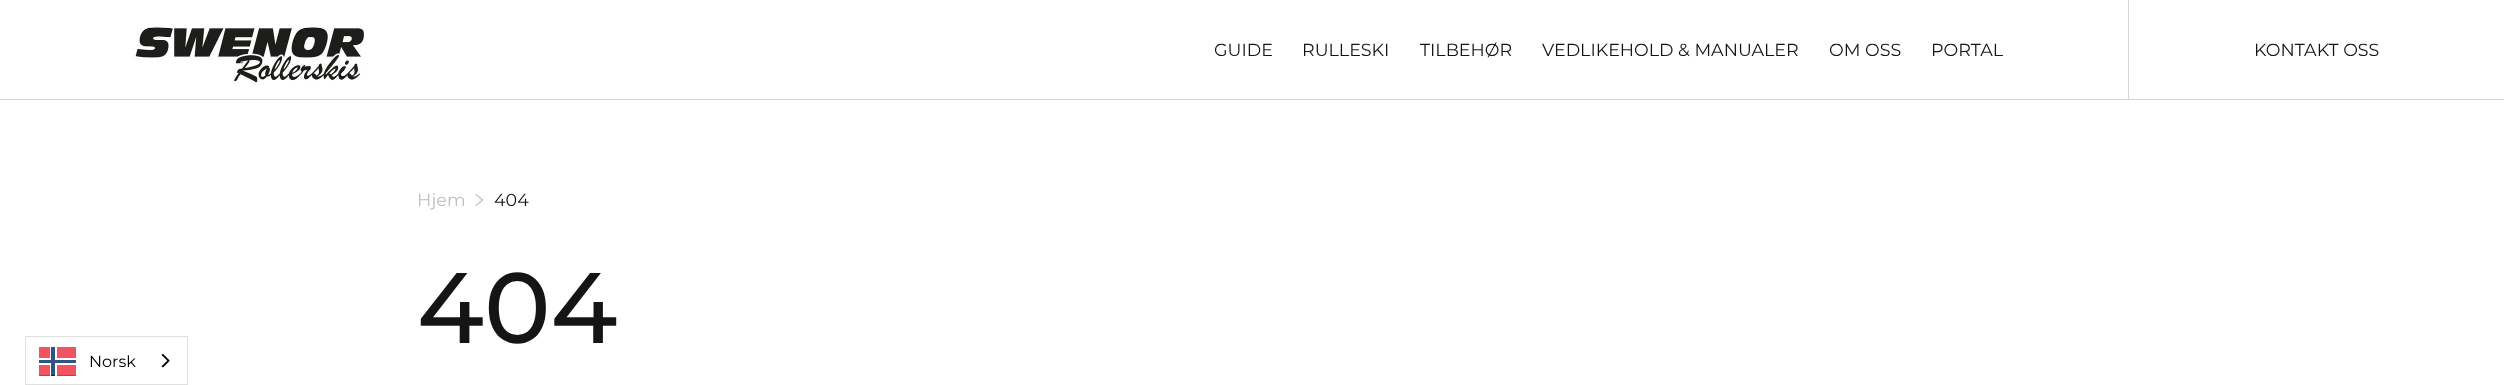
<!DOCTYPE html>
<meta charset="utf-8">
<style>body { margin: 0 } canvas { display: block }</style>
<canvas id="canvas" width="2504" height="385"></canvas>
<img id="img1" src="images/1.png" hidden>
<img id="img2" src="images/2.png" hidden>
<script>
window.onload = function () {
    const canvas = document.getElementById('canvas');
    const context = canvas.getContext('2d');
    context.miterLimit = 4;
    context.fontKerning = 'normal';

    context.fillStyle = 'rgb(255, 255, 255)';
    context.fillRect(0, 0, 2504, 385);
    context.fillStyle = 'rgb(212, 212, 210)';
    context.fillRect(2128, 0, 1, 100);
    context.fillRect(0, 99, 2504, 1);
    context.drawImage(document.getElementById('img1'), 133, 24, 232, 60);
    context.beginPath();
    context.moveTo(476, 194.5);
    context.lineTo(482.5, 200);
    context.lineTo(476, 205.5);
    context.strokeStyle = 'rgb(190, 190, 190)';
    context.lineWidth = 1.2;
    context.lineCap = 'round';
    context.lineJoin = 'round';
    context.stroke();
    context.strokeStyle = 'rgb(224, 224, 224)';
    context.lineWidth = 1;
    context.lineJoin = 'miter';
    context.strokeRect(25.5, 336.5, 162, 48);
    context.fillStyle = 'rgb(237, 41, 57)';
    context.fillRect(39, 375, 37, 1);
    context.fillStyle = 'rgb(241, 84, 97)';
    context.fillRect(39, 347, 37, 28);
    context.fillStyle = 'rgb(255, 255, 255)';
    context.fillRect(50, 347, 7, 29);
    context.fillRect(39, 358, 37, 7);
    context.fillStyle = 'rgb(0, 38, 100)';
    context.fillRect(51, 375, 4, 1);
    context.fillStyle = 'rgb(51, 81, 131)';
    context.fillRect(51, 347, 4, 28);
    context.fillRect(39, 360, 37, 3);
    context.drawImage(document.getElementById('img2'), 161, 354, 9, 14);
    context.font = '17.5px Montserrat';
    context.fillStyle = 'rgb(20, 22, 21)';
    context.fillText('GUIDE', 1214, 56);
    context.fillText('RULLESKI', 1302, 56);
    context.fillText('TILBEHØR', 1420, 56);
    context.fillText('VEDLIKEHOLD & MANUALER', 1542, 56);
    context.fillText('OM OSS', 1829, 56);
    context.fillText('PORTAL', 1931, 56);
    context.fillText('KONTAKT OSS', 2254, 56);
    context.fillStyle = 'rgb(190, 190, 190)';
    context.fillText('Hjem', 417, 206);
    context.fillStyle = 'rgb(20, 22, 21)';
    context.fillText('404', 494, 206);
    context.font = '500 100px Montserrat';
    context.fillText('404', 417, 343);
    context.font = '16px Montserrat';
    context.fillStyle = 'rgb(0, 0, 0)';
    context.fillText('Norsk', 89, 367);
};
</script>
